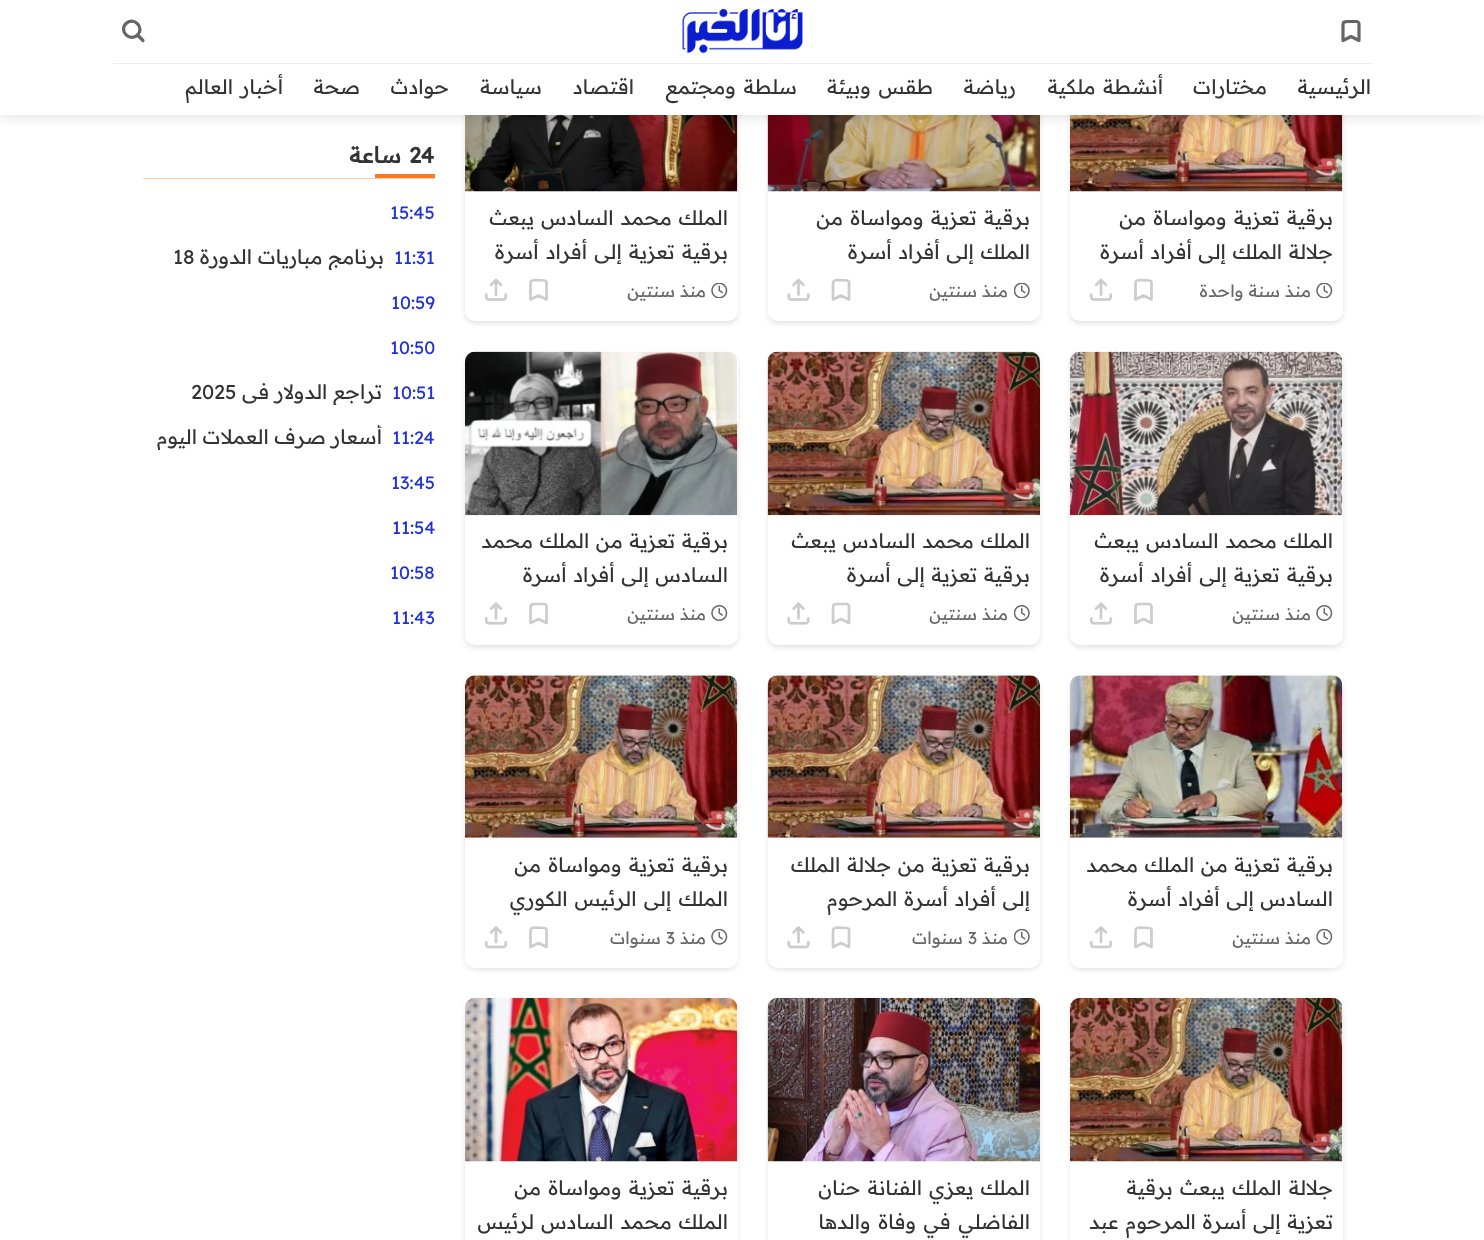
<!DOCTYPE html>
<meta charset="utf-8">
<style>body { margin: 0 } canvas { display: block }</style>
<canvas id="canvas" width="1484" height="1240"></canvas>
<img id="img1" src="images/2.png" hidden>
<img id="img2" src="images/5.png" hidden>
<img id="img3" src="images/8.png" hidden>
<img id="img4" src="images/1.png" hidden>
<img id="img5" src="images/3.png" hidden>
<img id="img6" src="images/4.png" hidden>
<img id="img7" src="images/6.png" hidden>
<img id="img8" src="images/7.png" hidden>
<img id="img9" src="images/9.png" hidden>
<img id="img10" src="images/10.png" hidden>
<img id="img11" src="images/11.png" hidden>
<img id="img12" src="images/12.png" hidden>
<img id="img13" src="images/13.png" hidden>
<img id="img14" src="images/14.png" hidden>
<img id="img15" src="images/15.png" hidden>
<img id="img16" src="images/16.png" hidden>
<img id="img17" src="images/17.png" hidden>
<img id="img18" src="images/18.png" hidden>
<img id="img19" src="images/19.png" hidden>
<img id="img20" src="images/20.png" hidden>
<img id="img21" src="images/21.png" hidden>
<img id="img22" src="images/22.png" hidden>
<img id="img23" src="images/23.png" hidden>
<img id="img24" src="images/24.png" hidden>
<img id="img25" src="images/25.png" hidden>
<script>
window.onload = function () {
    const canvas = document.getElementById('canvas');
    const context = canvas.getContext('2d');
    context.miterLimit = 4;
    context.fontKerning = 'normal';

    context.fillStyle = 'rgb(255, 255, 255)';
    context.fillRect(0, 0, 1484, 1240);
    context.fillStyle = 'rgba(0, 0, 0, 0.1)';
    context.filter = 'blur(2.5px)';
    context.beginPath();
    context.roundRect(1070, 30, 273, 294, 10);
    context.fill();
    context.filter = 'none';
    context.fillStyle = 'rgb(255, 255, 255)';
    context.beginPath();
    context.roundRect(1070, 28, 273, 293, 10);
    context.fill();
    context.drawImage(document.getElementById('img1'), 1070, 115, 273, 77);
    context.fillStyle = 'rgba(0, 0, 0, 0.1)';
    context.filter = 'blur(2.5px)';
    context.beginPath();
    context.roundRect(768, 30, 272, 294, 10);
    context.fill();
    context.filter = 'none';
    context.fillStyle = 'rgb(255, 255, 255)';
    context.beginPath();
    context.roundRect(768, 28, 272, 293, 10);
    context.fill();
    context.drawImage(document.getElementById('img2'), 767, 115, 273, 77);
    context.fillStyle = 'rgba(0, 0, 0, 0.1)';
    context.filter = 'blur(2.5px)';
    context.beginPath();
    context.roundRect(465, 30, 273, 294, 10);
    context.fill();
    context.filter = 'none';
    context.fillStyle = 'rgb(255, 255, 255)';
    context.beginPath();
    context.roundRect(465, 28, 273, 293, 10);
    context.fill();
    context.drawImage(document.getElementById('img3'), 465, 115, 273, 77);
    context.fillStyle = 'rgba(0, 0, 0, 0.1)';
    context.filter = 'blur(6px)';
    context.beginPath();
    context.rect(0, 1, 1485, 117);
    context.fill();
    context.filter = 'none';
    context.fillStyle = 'rgb(255, 255, 255)';
    context.fillRect(0, 0, 1484, 115);
    context.beginPath();
    context.moveTo(1357, 21.5);
    context.bezierCurveTo(1358, 21.5, 1359, 23, 1359, 24);
    context.lineTo(1359, 40.5);
    context.lineTo(1351, 36.5);
    context.lineTo(1343, 40.5);
    context.lineTo(1343, 27);
    context.bezierCurveTo(1343, 22, 1343, 21.5, 1348, 21.5);
    context.closePath();
    context.strokeStyle = 'rgb(102, 102, 102)';
    context.lineWidth = 3.2;
    context.lineCap = 'round';
    context.lineJoin = 'round';
    context.stroke();
    context.drawImage(document.getElementById('img4'), 682, 9, 121, 44);
    context.beginPath();
    context.moveTo(143, 40.5);
    context.lineTo(137.5, 35);
    context.moveTo(137.5, 35);
    context.bezierCurveTo(145, 27.5, 133.5, 16, 126, 23.5);
    context.bezierCurveTo(118.5, 31, 130, 42.5, 137.5, 35);
    context.closePath();
    context.stroke();
    context.fillStyle = 'rgb(238, 238, 238)';
    context.fillRect(113, 63, 1260, 1);
    context.drawImage(document.getElementById('img5'), 1316, 283, 17, 15);
    context.beginPath();
    context.moveTo(1149.5, 280.5);
    context.bezierCurveTo(1150.5, 280.5, 1151.5, 281.5, 1151.5, 282.5);
    context.lineTo(1151.5, 299.5);
    context.lineTo(1143.5, 295.5);
    context.lineTo(1135.5, 299.5);
    context.lineTo(1135.5, 285.5);
    context.bezierCurveTo(1135.5, 280.5, 1135.5, 280.5, 1140.5, 280);
    context.closePath();
    context.strokeStyle = 'rgb(204, 204, 204)';
    context.lineWidth = 2.7;
    context.stroke();
    context.drawImage(document.getElementById('img6'), 1089, 278, 24, 23);
    context.drawImage(document.getElementById('img7'), 1014, 283, 16, 15);
    context.beginPath();
    context.moveTo(847, 280.5);
    context.bezierCurveTo(848, 280.5, 849, 281.5, 849, 282.5);
    context.lineTo(849, 299.5);
    context.lineTo(841, 295.5);
    context.lineTo(833, 299.5);
    context.lineTo(833, 285.5);
    context.bezierCurveTo(833, 280.5, 833, 280.5, 838, 280);
    context.closePath();
    context.stroke();
    context.drawImage(document.getElementById('img8'), 787, 278, 23, 23);
    context.drawImage(document.getElementById('img5'), 711, 283, 17, 15);
    context.beginPath();
    context.moveTo(544.5, 280.5);
    context.bezierCurveTo(545.5, 280.5, 546.5, 281.5, 546.5, 282.5);
    context.lineTo(546.5, 299.5);
    context.lineTo(538.5, 295.5);
    context.lineTo(530.5, 299.5);
    context.lineTo(530.5, 285.5);
    context.bezierCurveTo(530.5, 280.5, 530.5, 280.5, 535.5, 280);
    context.closePath();
    context.stroke();
    context.drawImage(document.getElementById('img6'), 484, 278, 24, 23);
    context.fillStyle = 'rgba(0, 0, 0, 0.1)';
    context.filter = 'blur(2.5px)';
    context.beginPath();
    context.roundRect(1070, 354, 273, 294, 10);
    context.fill();
    context.filter = 'none';
    context.fillStyle = 'rgb(255, 255, 255)';
    context.beginPath();
    context.roundRect(1070, 351, 273, 294, 10);
    context.fill();
    context.drawImage(document.getElementById('img9'), 1070, 351, 273, 165);
    context.drawImage(document.getElementById('img10'), 1316, 605, 17, 16);
    context.beginPath();
    context.moveTo(1149.5, 604);
    context.bezierCurveTo(1150.5, 604, 1151.5, 605.5, 1151.5, 606.5);
    context.lineTo(1151.5, 623);
    context.lineTo(1143.5, 619);
    context.lineTo(1135.5, 623);
    context.lineTo(1135.5, 609.5);
    context.bezierCurveTo(1135.5, 604.5, 1135.5, 604, 1140.5, 604);
    context.closePath();
    context.stroke();
    context.drawImage(document.getElementById('img11'), 1089, 602, 24, 23);
    context.fillStyle = 'rgba(0, 0, 0, 0.1)';
    context.filter = 'blur(2.5px)';
    context.beginPath();
    context.roundRect(768, 354, 272, 294, 10);
    context.fill();
    context.filter = 'none';
    context.fillStyle = 'rgb(255, 255, 255)';
    context.beginPath();
    context.roundRect(768, 351, 272, 294, 10);
    context.fill();
    context.drawImage(document.getElementById('img12'), 767, 351, 273, 165);
    context.drawImage(document.getElementById('img13'), 1014, 605, 16, 16);
    context.beginPath();
    context.moveTo(847, 604);
    context.bezierCurveTo(848, 604, 849, 605.5, 849, 606.5);
    context.lineTo(849, 623);
    context.lineTo(841, 619);
    context.lineTo(833, 623);
    context.lineTo(833, 609.5);
    context.bezierCurveTo(833, 604.5, 833, 604, 838, 604);
    context.closePath();
    context.stroke();
    context.drawImage(document.getElementById('img14'), 787, 602, 23, 23);
    context.fillStyle = 'rgba(0, 0, 0, 0.1)';
    context.filter = 'blur(2.5px)';
    context.beginPath();
    context.roundRect(465, 354, 273, 294, 10);
    context.fill();
    context.filter = 'none';
    context.fillStyle = 'rgb(255, 255, 255)';
    context.beginPath();
    context.roundRect(465, 351, 273, 294, 10);
    context.fill();
    context.drawImage(document.getElementById('img15'), 465, 351, 273, 165);
    context.drawImage(document.getElementById('img10'), 711, 605, 17, 16);
    context.beginPath();
    context.moveTo(544.5, 604);
    context.bezierCurveTo(545.5, 604, 546.5, 605.5, 546.5, 606.5);
    context.lineTo(546.5, 623);
    context.lineTo(538.5, 619);
    context.lineTo(530.5, 623);
    context.lineTo(530.5, 609.5);
    context.bezierCurveTo(530.5, 604.5, 530.5, 604, 535.5, 604);
    context.closePath();
    context.stroke();
    context.drawImage(document.getElementById('img11'), 484, 602, 24, 23);
    context.fillStyle = 'rgba(0, 0, 0, 0.1)';
    context.filter = 'blur(2.5px)';
    context.beginPath();
    context.roundRect(1070, 678, 273, 292, 10);
    context.fill();
    context.filter = 'none';
    context.fillStyle = 'rgb(255, 255, 255)';
    context.beginPath();
    context.roundRect(1070, 675, 273, 293, 10);
    context.fill();
    context.drawImage(document.getElementById('img16'), 1070, 675, 273, 163);
    context.drawImage(document.getElementById('img17'), 1316, 929, 17, 16);
    context.beginPath();
    context.moveTo(1149.5, 928);
    context.bezierCurveTo(1150.5, 928, 1151.5, 929, 1151.5, 930);
    context.lineTo(1151.5, 947);
    context.lineTo(1143.5, 943);
    context.lineTo(1135.5, 947);
    context.lineTo(1135.5, 933);
    context.bezierCurveTo(1135.5, 928, 1135.5, 928, 1140.5, 927.5);
    context.closePath();
    context.stroke();
    context.drawImage(document.getElementById('img18'), 1089, 926, 24, 23);
    context.fillStyle = 'rgba(0, 0, 0, 0.1)';
    context.filter = 'blur(2.5px)';
    context.beginPath();
    context.roundRect(768, 678, 272, 292, 10);
    context.fill();
    context.filter = 'none';
    context.fillStyle = 'rgb(255, 255, 255)';
    context.beginPath();
    context.roundRect(768, 675, 272, 293, 10);
    context.fill();
    context.drawImage(document.getElementById('img19'), 767, 675, 273, 163);
    context.drawImage(document.getElementById('img20'), 1014, 929, 16, 16);
    context.beginPath();
    context.moveTo(847, 928);
    context.bezierCurveTo(848, 928, 849, 929, 849, 930);
    context.lineTo(849, 947);
    context.lineTo(841, 943);
    context.lineTo(833, 947);
    context.lineTo(833, 933);
    context.bezierCurveTo(833, 928, 833, 928, 838, 927.5);
    context.closePath();
    context.stroke();
    context.drawImage(document.getElementById('img21'), 787, 926, 23, 23);
    context.fillStyle = 'rgba(0, 0, 0, 0.1)';
    context.filter = 'blur(2.5px)';
    context.beginPath();
    context.roundRect(465, 678, 273, 292, 10);
    context.fill();
    context.filter = 'none';
    context.fillStyle = 'rgb(255, 255, 255)';
    context.beginPath();
    context.roundRect(465, 675, 273, 293, 10);
    context.fill();
    context.drawImage(document.getElementById('img22'), 465, 675, 273, 163);
    context.drawImage(document.getElementById('img17'), 711, 929, 17, 16);
    context.beginPath();
    context.moveTo(544.5, 928);
    context.bezierCurveTo(545.5, 928, 546.5, 929, 546.5, 930);
    context.lineTo(546.5, 947);
    context.lineTo(538.5, 943);
    context.lineTo(530.5, 947);
    context.lineTo(530.5, 933);
    context.bezierCurveTo(530.5, 928, 530.5, 928, 535.5, 927.5);
    context.closePath();
    context.stroke();
    context.drawImage(document.getElementById('img18'), 484, 926, 24, 23);
    context.fillStyle = 'rgba(0, 0, 0, 0.1)';
    context.filter = 'blur(2.5px)';
    context.beginPath();
    context.roundRect(1070, 1000, 273, 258, 10);
    context.fill();
    context.filter = 'none';
    context.fillStyle = 'rgb(255, 255, 255)';
    context.beginPath();
    context.roundRect(1070, 998, 273, 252, 10);
    context.fill();
    context.drawImage(document.getElementById('img23'), 1070, 998, 273, 164);
    context.save();
    context.beginPath();
    context.moveTo(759, 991);
    context.lineTo(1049, 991);
    context.lineTo(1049, 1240);
    context.lineTo(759, 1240);
    context.closePath();
    context.moveTo(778, 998);
    context.lineTo(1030, 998);
    context.bezierCurveTo(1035.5, 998, 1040, 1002.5, 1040, 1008);
    context.lineTo(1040, 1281);
    context.bezierCurveTo(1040, 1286.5, 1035.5, 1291, 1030, 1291);
    context.lineTo(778, 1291);
    context.bezierCurveTo(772.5, 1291, 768, 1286.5, 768, 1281);
    context.lineTo(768, 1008);
    context.bezierCurveTo(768, 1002.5, 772.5, 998, 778, 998);
    context.closePath();
    context.clip('evenodd');
    context.fillStyle = 'rgba(0, 0, 0, 0.1)';
    context.filter = 'blur(2.5px)';
    context.beginPath();
    context.roundRect(768, 1000, 272, 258, 10);
    context.fill();
    context.filter = 'none';
    context.restore();
    context.drawImage(document.getElementById('img24'), 767, 998, 273, 164);
    context.fillStyle = 'rgba(0, 0, 0, 0.1)';
    context.filter = 'blur(2.5px)';
    context.beginPath();
    context.roundRect(465, 1000, 273, 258, 10);
    context.fill();
    context.filter = 'none';
    context.fillStyle = 'rgb(255, 255, 255)';
    context.beginPath();
    context.roundRect(465, 998, 273, 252, 10);
    context.fill();
    context.drawImage(document.getElementById('img25'), 465, 998, 273, 164);
    context.fillStyle = 'rgb(250, 121, 33)';
    context.fillRect(375, 174, 60, 4);
    context.fillStyle = 'rgb(253, 204, 171)';
    context.fillRect(143, 178, 292, 1);
    context.direction = 'rtl';
    context.font = '20px Readex Pro';
    context.fillStyle = 'rgb(51, 51, 51)';
    context.fillText('الرئيسية', 1371, 94);
    context.fillText('مختارات', 1267, 94);
    context.wordSpacing = '2px';
    context.fillText('أنشطة ملكية', 1163, 94);
    context.wordSpacing = '0px';
    context.fillText('رياضة', 1016, 94);
    context.wordSpacing = '2px';
    context.fillText('طقس وبيئة', 933, 94);
    context.fillText('سلطة ومجتمع', 797, 94);
    context.wordSpacing = '0px';
    context.fillText('اقتصاد', 634, 94);
    context.fillText('سياسة', 542, 94);
    context.fillText('حوادث', 449, 94);
    context.fillText('صحة', 360, 94);
    context.wordSpacing = '2px';
    context.fillText('أخبار العالم', 283, 94);
    context.wordSpacing = '1.5px';
    context.fillText('برقية تعزية ومواساة من', 1333, 225);
    context.wordSpacing = '1px';
    context.fillText('جلالة الملك إلى أفراد أسرة', 1333, 259);
    context.wordSpacing = '0px';
    context.font = '17px Readex Pro';
    context.fillStyle = 'rgb(102, 102, 102)';
    context.fillText('منذ سنة واحدة', 1311, 297);
    context.wordSpacing = '1.5px';
    context.font = '20px Readex Pro';
    context.fillStyle = 'rgb(51, 51, 51)';
    context.fillText('برقية تعزية ومواساة من', 1030, 225);
    context.wordSpacing = '1px';
    context.fillText('الملك إلى أفراد أسرة', 1030, 259);
    context.wordSpacing = '0px';
    context.font = '17px Readex Pro';
    context.fillStyle = 'rgb(102, 102, 102)';
    context.fillText('منذ سنتين', 1008, 297);
    context.wordSpacing = '1px';
    context.font = '20px Readex Pro';
    context.fillStyle = 'rgb(51, 51, 51)';
    context.fillText('الملك محمد السادس يبعث', 728, 225);
    context.wordSpacing = '1.5px';
    context.fillText('برقية تعزية إلى أفراد أسرة', 728, 259);
    context.wordSpacing = '0px';
    context.font = '17px Readex Pro';
    context.fillStyle = 'rgb(102, 102, 102)';
    context.fillText('منذ سنتين', 706, 297);
    context.wordSpacing = '1px';
    context.font = '20px Readex Pro';
    context.fillStyle = 'rgb(51, 51, 51)';
    context.fillText('الملك محمد السادس يبعث', 1333, 548);
    context.wordSpacing = '1.5px';
    context.fillText('برقية تعزية إلى أفراد أسرة', 1333, 582);
    context.wordSpacing = '0px';
    context.font = '17px Readex Pro';
    context.fillStyle = 'rgb(102, 102, 102)';
    context.fillText('منذ سنتين', 1311, 620);
    context.wordSpacing = '1px';
    context.font = '20px Readex Pro';
    context.fillStyle = 'rgb(51, 51, 51)';
    context.fillText('الملك محمد السادس يبعث', 1030, 548);
    context.fillText('برقية تعزية إلى أسرة', 1030, 582);
    context.wordSpacing = '0px';
    context.font = '17px Readex Pro';
    context.fillStyle = 'rgb(102, 102, 102)';
    context.fillText('منذ سنتين', 1008, 620);
    context.wordSpacing = '1px';
    context.font = '20px Readex Pro';
    context.fillStyle = 'rgb(51, 51, 51)';
    context.fillText('برقية تعزية من الملك محمد', 728, 548);
    context.fillText('السادس إلى أفراد أسرة', 728, 582);
    context.wordSpacing = '0px';
    context.font = '17px Readex Pro';
    context.fillStyle = 'rgb(102, 102, 102)';
    context.fillText('منذ سنتين', 706, 620);
    context.wordSpacing = '1px';
    context.font = '20px Readex Pro';
    context.fillStyle = 'rgb(51, 51, 51)';
    context.fillText('برقية تعزية من الملك محمد', 1333, 872);
    context.fillText('السادس إلى أفراد أسرة', 1333, 906);
    context.wordSpacing = '0px';
    context.font = '17px Readex Pro';
    context.fillStyle = 'rgb(102, 102, 102)';
    context.fillText('منذ سنتين', 1311, 944);
    context.wordSpacing = '1px';
    context.font = '20px Readex Pro';
    context.fillStyle = 'rgb(51, 51, 51)';
    context.fillText('برقية تعزية من جلالة الملك', 1030, 872);
    context.fillText('إلى أفراد أسرة المرحوم', 1030, 906);
    context.wordSpacing = '0px';
    context.font = '17px Readex Pro';
    context.fillStyle = 'rgb(102, 102, 102)';
    context.fillText('منذ', 1008, 944);
    context.direction = 'ltr';
    context.fillText('3', 968, 944);
    context.direction = 'rtl';
    context.fillText('سنوات', 963, 944);
    context.wordSpacing = '1.5px';
    context.font = '20px Readex Pro';
    context.fillStyle = 'rgb(51, 51, 51)';
    context.fillText('برقية تعزية ومواساة من', 728, 872);
    context.fillText('الملك إلى الرئيس الكوري', 728, 906);
    context.wordSpacing = '0px';
    context.font = '17px Readex Pro';
    context.fillStyle = 'rgb(102, 102, 102)';
    context.fillText('منذ', 706, 944);
    context.direction = 'ltr';
    context.fillText('3', 666, 944);
    context.direction = 'rtl';
    context.fillText('سنوات', 661, 944);
    context.wordSpacing = '1.5px';
    context.font = '20px Readex Pro';
    context.fillStyle = 'rgb(51, 51, 51)';
    context.fillText('جلالة الملك يبعث برقية', 1333, 1195);
    context.wordSpacing = '1px';
    context.fillText('تعزية إلى أسرة المرحوم عبد', 1333, 1229);
    context.wordSpacing = '1.5px';
    context.fillText('الملك يعزي الفنانة حنان', 1030, 1195);
    context.wordSpacing = '2px';
    context.fillText('الفاضلي في وفاة والدها', 1030, 1229);
    context.wordSpacing = '1.5px';
    context.fillText('برقية تعزية ومواساة من', 728, 1195);
    context.wordSpacing = '1px';
    context.fillText('الملك محمد السادس لرئيس', 728, 1229);
    context.wordSpacing = '0px';
    context.direction = 'ltr';
    context.font = 'bold 22px Readex Pro';
    context.fillText('24', 409, 163);
    context.direction = 'rtl';
    context.fillText('ساعة', 401, 163);
    context.direction = 'ltr';
    context.font = '18px Readex Pro';
    context.fillStyle = 'rgb(33, 50, 212)';
    context.fillText('15:45', 390, 219);
    context.fillText('11:31', 394, 264);
    context.save();
    context.beginPath();
    context.rect(143, 245, 242, 25);
    context.clip();
    context.direction = 'rtl';
    context.font = '20px Readex Pro';
    context.fillStyle = 'rgb(51, 51, 51)';
    context.fillText('برنامج مباريات الدورة', 384, 264);
    context.restore();
    context.font = '20px Readex Pro';
    context.fillStyle = 'rgb(51, 51, 51)';
    context.fillText('18', 173, 264);
    context.font = '18px Readex Pro';
    context.fillStyle = 'rgb(33, 50, 212)';
    context.fillText('10:59', 391, 309);
    context.fillText('10:50', 390, 354);
    context.fillText('10:51', 392, 399);
    context.save();
    context.beginPath();
    context.rect(143, 380, 238, 25);
    context.clip();
    context.direction = 'rtl';
    context.font = '20px Readex Pro';
    context.fillStyle = 'rgb(51, 51, 51)';
    context.fillText('تراجع الدولار في', 382, 399);
    context.restore();
    context.font = '20px Readex Pro';
    context.fillStyle = 'rgb(51, 51, 51)';
    context.fillText('2025', 191, 399);
    context.font = '18px Readex Pro';
    context.fillStyle = 'rgb(33, 50, 212)';
    context.fillText('11:24', 392, 444);
    context.save();
    context.beginPath();
    context.rect(143, 425, 240, 25);
    context.clip();
    context.direction = 'rtl';
    context.font = '20px Readex Pro';
    context.fillStyle = 'rgb(51, 51, 51)';
    context.fillText('أسعار صرف العملات اليوم', 382, 444);
    context.restore();
    context.fillText('13:45', 391, 489);
    context.fillText('11:54', 392, 534);
    context.fillText('10:58', 390, 579);
    context.fillText('11:43', 392, 624);
};
</script>
